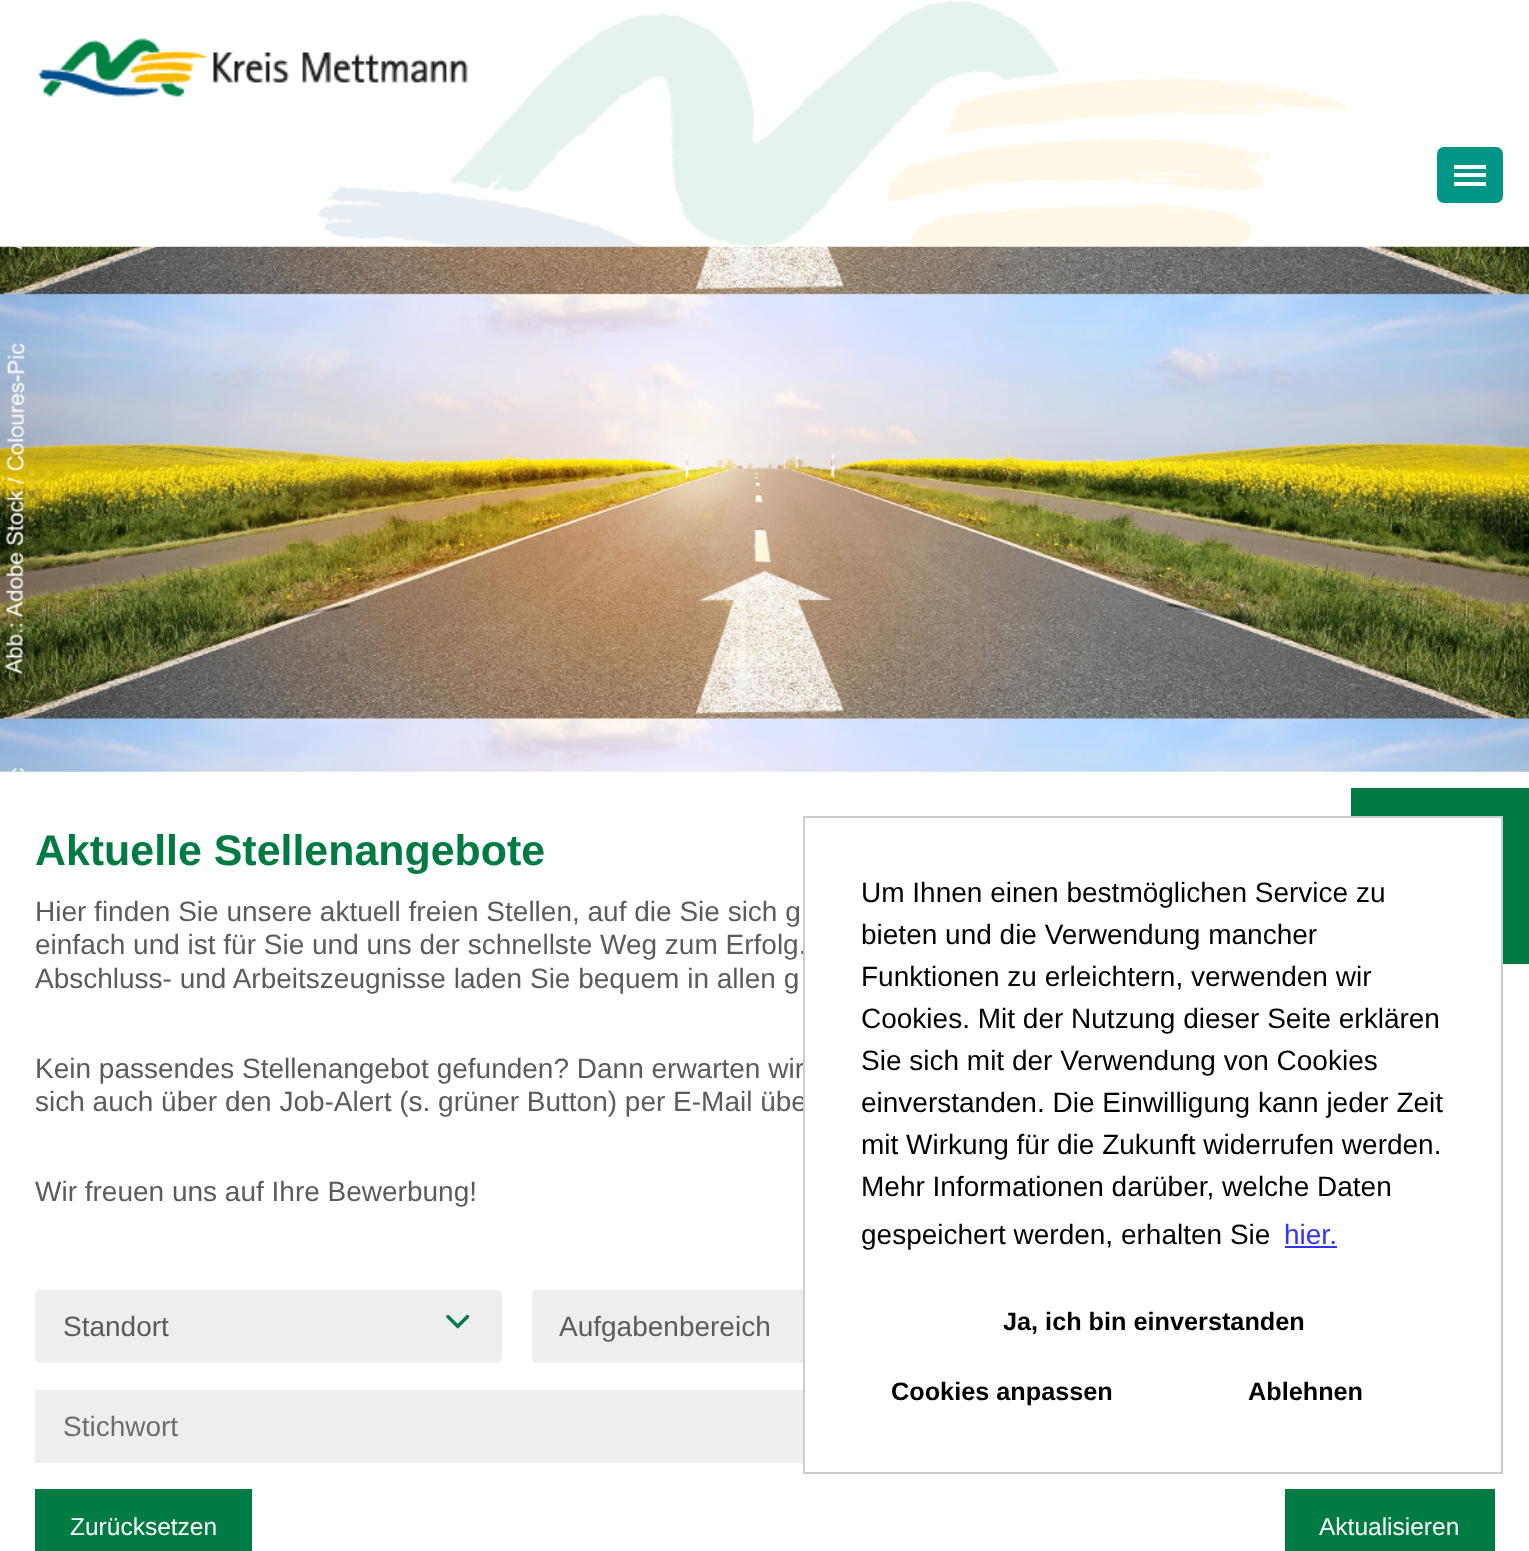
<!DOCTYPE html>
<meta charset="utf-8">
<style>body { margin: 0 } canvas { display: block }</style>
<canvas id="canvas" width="1529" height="1551"></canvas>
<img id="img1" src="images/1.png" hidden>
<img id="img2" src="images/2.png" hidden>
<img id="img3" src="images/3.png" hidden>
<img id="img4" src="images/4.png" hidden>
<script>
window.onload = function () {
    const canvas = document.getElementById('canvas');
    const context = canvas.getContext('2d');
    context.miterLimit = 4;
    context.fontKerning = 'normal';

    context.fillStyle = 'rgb(255, 255, 255)';
    context.fillRect(0, 0, 1529, 1551);
    context.drawImage(document.getElementById('img1'), 318, 0, 1032, 247);
    context.drawImage(document.getElementById('img2'), 38, 38, 430, 59);
    context.fillStyle = 'rgb(0, 149, 132)';
    context.beginPath();
    context.roundRect(1437, 147, 66, 56, 7);
    context.fill();
    context.fillStyle = 'rgb(255, 255, 255)';
    context.fillRect(1454, 165, 32, 4);
    context.fillRect(1454, 173, 32, 4);
    context.fillRect(1454, 182, 32, 4);
    context.drawImage(document.getElementById('img3'), 0, 246, 1529, 526);
    context.fillStyle = 'rgb(0, 123, 67)';
    context.fillRect(1351, 788, 178, 176);
    context.fillStyle = 'rgb(238, 238, 238)';
    context.beginPath();
    context.roundRect(36, 1291, 465, 71, 4);
    context.fill();
    context.strokeStyle = 'rgb(238, 238, 238)';
    context.lineWidth = 2;
    context.stroke();
    context.drawImage(document.getElementById('img4'), 446, 1314, 24, 15);
    context.beginPath();
    context.roundRect(533, 1291, 464, 71, 4);
    context.fill();
    context.stroke();
    context.fillRect(35, 1390, 768, 73);
    context.fillStyle = 'rgb(0, 123, 67)';
    context.fillRect(35, 1489, 217, 62);
    context.fillRect(1285, 1489, 210, 62);
    context.font = 'bold 42.9px Liberation Sans';
    context.fillText('Aktuelle Stellenangebote', 35, 865);
    context.font = '28px Liberation Sans';
    context.fillStyle = 'rgb(91, 91, 91)';
    context.fillText('Hier finden Sie unsere aktuell freien Stellen, auf die Sie sich g', 35, 921);
    context.fillText('einfach und ist für Sie und uns der schnellste Weg zum Erfolg.', 35, 954);
    context.fillText('Abschluss- und Arbeitszeugnisse laden Sie bequem in allen g', 35, 988);
    context.fillText('Kein passendes Stellenangebot gefunden? Dann erwarten wir', 35, 1078);
    context.fillText('sich auch über den Job-Alert (s. grüner Button) per E-Mail übe', 35, 1111);
    context.fillText('Wir freuen uns auf Ihre Bewerbung!', 35, 1201);
    context.fillText('Standort', 63, 1336);
    context.fillText('Aufgabenbereich', 559, 1336);
    context.fillStyle = 'rgb(109, 109, 109)';
    context.fillText('Stichwort', 63, 1436);
    context.font = '24.5px Liberation Sans';
    context.fillStyle = 'rgb(255, 255, 255)';
    context.fillText('Zurücksetzen', 70, 1535);
    context.fillText('Aktualisieren', 1319, 1535);
    context.fillRect(805, 818, 696, 545);
    context.strokeStyle = 'rgb(204, 204, 204)';
    context.strokeRect(804, 817, 698, 656);
    context.font = '28px Liberation Sans';
    context.fillStyle = 'rgb(0, 0, 0)';
    context.fillText('Um Ihnen einen bestmöglichen Service zu', 861, 902);
    context.fillText('bieten und die Verwendung mancher', 861, 944);
    context.fillText('Funktionen zu erleichtern, verwenden wir', 861, 986);
    context.fillText('Cookies. Mit der Nutzung dieser Seite erklären', 861, 1028);
    context.fillText('Sie sich mit der Verwendung von Cookies', 861, 1070);
    context.fillText('einverstanden. Die Einwilligung kann jeder Zeit', 861, 1112);
    context.fillText('mit Wirkung für die Zukunft widerrufen werden.', 861, 1154);
    context.fillText('Mehr Informationen darüber, welche Daten', 861, 1196);
    context.fillText('gespeichert werden, erhalten Sie', 861, 1244);
    context.fillStyle = 'rgb(51, 51, 241)';
    context.fillText('hier.', 1284, 1244);
    context.fillRect(1285, 1246, 52, 2);
    context.font = 'bold 25.25px Liberation Sans';
    context.fillStyle = 'rgb(0, 0, 0)';
    context.fillText('Ja, ich bin einverstanden', 1003, 1330);
    context.fillText('Cookies anpassen', 891, 1400);
    context.fillText('Ablehnen', 1248, 1400);
};
</script>
